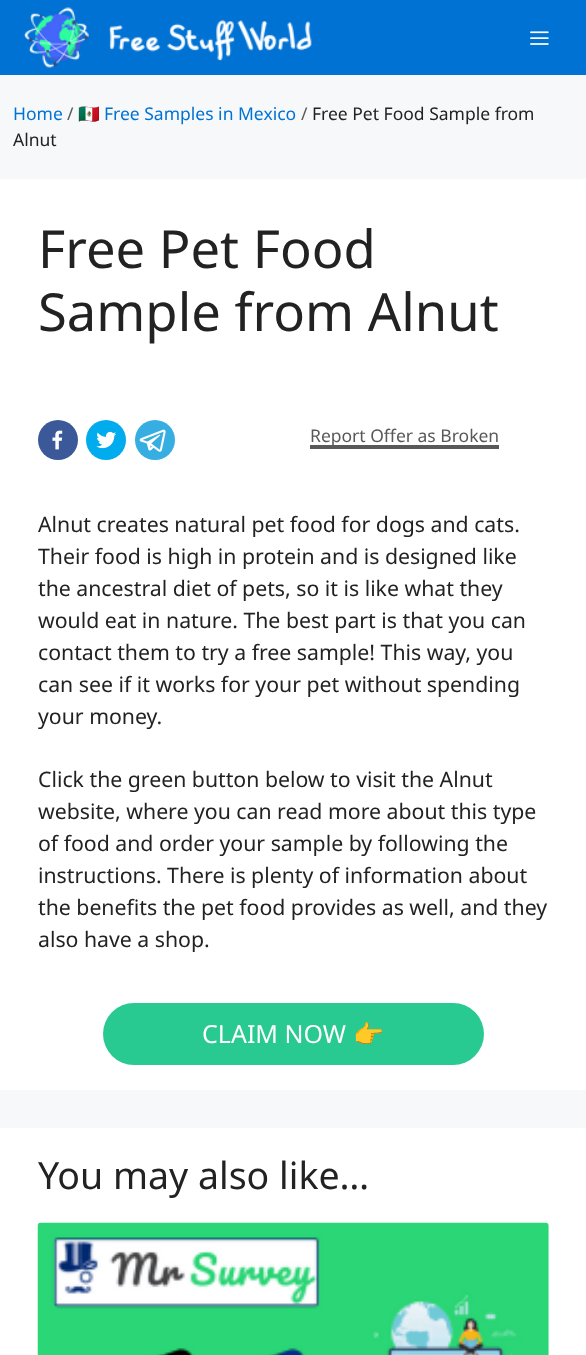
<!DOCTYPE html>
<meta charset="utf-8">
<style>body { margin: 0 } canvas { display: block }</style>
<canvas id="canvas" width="586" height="1355"></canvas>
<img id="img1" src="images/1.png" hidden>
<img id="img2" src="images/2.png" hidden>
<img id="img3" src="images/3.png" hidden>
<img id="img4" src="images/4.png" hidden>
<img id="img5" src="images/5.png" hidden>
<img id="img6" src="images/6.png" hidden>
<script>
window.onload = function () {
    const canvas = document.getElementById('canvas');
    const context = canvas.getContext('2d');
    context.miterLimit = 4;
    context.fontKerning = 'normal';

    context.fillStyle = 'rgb(247, 248, 249)';
    context.fillRect(0, 0, 586, 1355);
    context.fillStyle = 'rgb(0, 114, 212)';
    context.fillRect(0, 0, 586, 75);
    context.drawImage(document.getElementById('img1'), 23, 7, 289, 61);
    context.drawImage(document.getElementById('img2'), 530, 31, 19, 14);
    context.fillStyle = 'rgb(255, 255, 255)';
    context.fillRect(0, 179, 586, 1176);
    context.fillStyle = 'rgb(59, 89, 152)';
    context.beginPath();
    context.arc(58, 440, 20, 0, 2 * Math.PI);
    context.fill();
    context.drawImage(document.getElementById('img3'), 52, 430, 11, 20);
    context.fillStyle = 'rgb(0, 172, 237)';
    context.beginPath();
    context.arc(106, 440, 20, 0, 2 * Math.PI);
    context.fill();
    context.drawImage(document.getElementById('img4'), 96, 431, 21, 18);
    context.fillStyle = 'rgb(55, 174, 226)';
    context.beginPath();
    context.arc(155, 440, 20, 0, 2 * Math.PI);
    context.fill();
    context.drawImage(document.getElementById('img5'), 139, 429, 27, 23);
    context.fillStyle = 'rgb(89, 89, 89)';
    context.fillRect(310, 445, 189, 4);
    context.fillStyle = 'rgb(41, 201, 146)';
    context.beginPath();
    context.roundRect(103, 1003, 381, 62, 31);
    context.fill();
    context.fillStyle = 'rgb(246, 248, 249)';
    context.fillRect(0, 1090, 586, 38);
    context.drawImage(document.getElementById('img6'), 37, 1222, 512, 133);
    context.font = '17.5px Noto Sans';
    context.fillStyle = 'rgb(0, 114, 212)';
    context.fillText('Home', 13, 120);
    context.fillStyle = 'rgb(89, 89, 89)';
    context.fillText('/', 67, 120);
    context.font = '17.5px Noto Color Emoji';
    context.fillStyle = 'rgb(0, 114, 212)';
    context.fillText('🇲🇽', 78, 120);
    context.font = '17.5px Noto Sans';
    context.fillText('Free Samples in Mexico', 104, 120);
    context.fillStyle = 'rgb(89, 89, 89)';
    context.fillText('/', 301, 120);
    context.fillStyle = 'rgb(34, 34, 34)';
    context.fillText('Free Pet Food Sample from', 312, 120);
    context.fillText('Alnut', 13, 146);
    context.font = '52.5px Noto Sans';
    context.fillText('Free Pet Food', 38, 268);
    context.fillText('Sample from Alnut', 38, 331);
    context.font = '17.5px Noto Sans';
    context.fillStyle = 'rgb(89, 89, 89)';
    context.fillText('Report Offer as Broken', 310, 442);
    context.font = '21.25px Noto Sans';
    context.fillStyle = 'rgb(34, 34, 34)';
    context.fillText('Alnut creates natural pet food for dogs and cats.', 38, 532);
    context.fillText('Their food is high in protein and is designed like', 38, 564);
    context.fillText('the ancestral diet of pets, so it is like what they', 38, 596);
    context.fillText('would eat in nature. The best part is that you can', 38, 628);
    context.fillText('contact them to try a free sample! This way, you', 38, 660);
    context.fillText('can see if it works for your pet without spending', 38, 692);
    context.fillText('your money.', 38, 724);
    context.fillText('Click the green button below to visit the Alnut', 38, 787);
    context.fillText('website, where you can read more about this type', 38, 819);
    context.fillText('of food and order your sample by following the', 38, 851);
    context.fillText('instructions. There is plenty of information about', 38, 883);
    context.fillText('the benefits the pet food provides as well, and they', 38, 915);
    context.fillText('also have a shop.', 38, 947);
    context.font = '25px Noto Sans';
    context.fillStyle = 'rgb(255, 255, 255)';
    context.fillText('CLAIM NOW', 202, 1043);
    context.font = '25px Noto Color Emoji';
    context.fillText('👉', 353, 1043);
    context.font = '37.5px Noto Sans';
    context.fillStyle = 'rgb(34, 34, 34)';
    context.fillText('You may also like…', 38, 1189);
};
</script>
